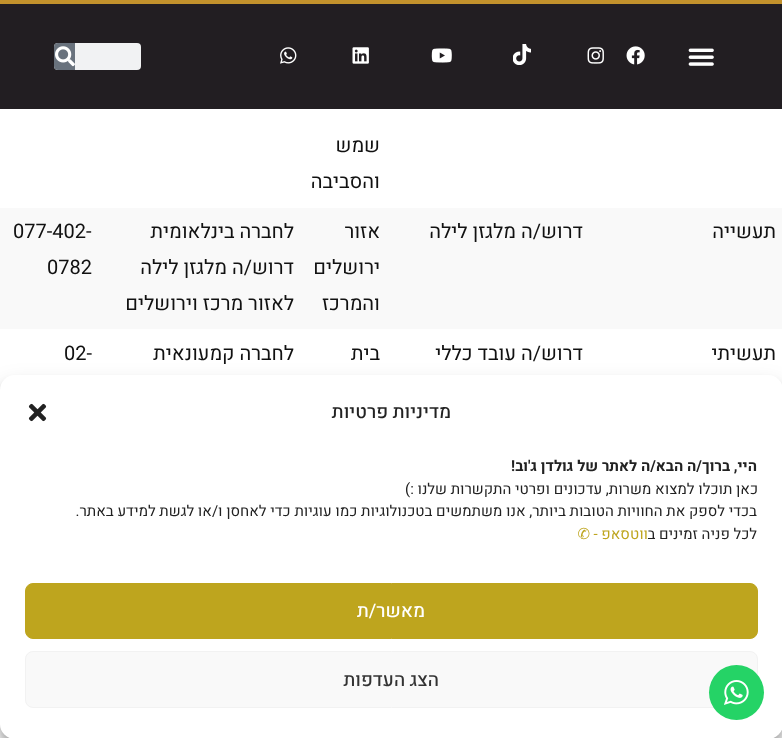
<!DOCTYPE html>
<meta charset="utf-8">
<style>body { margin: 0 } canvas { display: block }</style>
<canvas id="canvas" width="782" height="738"></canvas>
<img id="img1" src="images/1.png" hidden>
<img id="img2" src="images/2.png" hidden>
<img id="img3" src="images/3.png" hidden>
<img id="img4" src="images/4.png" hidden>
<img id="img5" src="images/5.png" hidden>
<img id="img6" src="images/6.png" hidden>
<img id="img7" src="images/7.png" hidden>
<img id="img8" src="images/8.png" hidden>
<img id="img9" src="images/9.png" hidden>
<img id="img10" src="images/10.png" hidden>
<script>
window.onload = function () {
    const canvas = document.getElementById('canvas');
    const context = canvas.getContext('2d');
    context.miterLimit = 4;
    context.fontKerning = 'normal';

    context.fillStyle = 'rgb(255, 255, 255)';
    context.fillRect(0, 0, 782, 738);
    context.fillStyle = 'rgb(34, 30, 34)';
    context.fillRect(0, 4, 782, 105);
    context.fillStyle = 'rgb(195, 146, 44)';
    context.fillRect(0, 0, 782, 4);
    context.drawImage(document.getElementById('img1'), 688, 48, 26, 18);
    context.drawImage(document.getElementById('img2'), 626, 46, 19, 19);
    context.drawImage(document.getElementById('img3'), 587, 47, 17, 17);
    context.drawImage(document.getElementById('img4'), 513, 44, 18, 21);
    context.drawImage(document.getElementById('img5'), 431, 48, 21, 15);
    context.drawImage(document.getElementById('img6'), 352, 47, 17, 17);
    context.drawImage(document.getElementById('img7'), 280, 47, 17, 17);
    context.fillStyle = 'rgb(241, 242, 243)';
    context.beginPath();
    context.roundRect(54, 43, 87, 27, 4);
    context.fill();
    context.fillStyle = 'rgb(105, 114, 125)';
    context.beginPath();
    context.roundRect(54, 43, 21, 27, [4, 0, 0, 4]);
    context.fill();
    context.drawImage(document.getElementById('img8'), 55, 46, 20, 21);
    context.fillStyle = 'rgb(249, 249, 249)';
    context.fillRect(0, 208, 782, 121);
    context.fillStyle = 'rgba(0, 0, 0, 0.23)';
    context.filter = 'blur(4px)';
    context.beginPath();
    context.roundRect(0, 383, 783, 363, 15);
    context.fill();
    context.filter = 'none';
    context.fillStyle = 'rgba(0, 0, 0, 0.19)';
    context.filter = 'blur(12.5px)';
    context.beginPath();
    context.roundRect(0, 388, 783, 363, 15);
    context.fill();
    context.filter = 'none';
    context.fillStyle = 'rgb(255, 255, 255)';
    context.beginPath();
    context.roundRect(0, 375, 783, 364, 15);
    context.fill();
    context.drawImage(document.getElementById('img9'), 28, 403, 19, 19);
    context.fillStyle = 'rgb(190, 165, 30)';
    context.beginPath();
    context.roundRect(25.5, 583.5, 732, 55, 7.5);
    context.fill();
    context.strokeStyle = 'rgb(190, 165, 30)';
    context.stroke();
    context.fillStyle = 'rgb(249, 249, 249)';
    context.beginPath();
    context.roundRect(25.5, 651.5, 732, 56, 7.5);
    context.fill();
    context.strokeStyle = 'rgb(242, 242, 242)';
    context.stroke();
    context.fillStyle = 'rgb(37, 211, 102)';
    context.beginPath();
    context.arc(736.5, 692.5, 27.5, 0, 2 * Math.PI);
    context.fill();
    context.drawImage(document.getElementById('img10'), 724, 680, 25, 25);
    context.direction = 'rtl';
    context.font = '20px Heebo';
    context.fillStyle = 'rgb(17, 17, 17)';
    context.fillText('שמש', 380, 152);
    context.fillText('והסביבה', 380, 188);
    context.fillText('תעשייה', 776, 238);
    context.fillText('דרוש/ה מלגזן לילה', 583, 238);
    context.fillText('אזור', 380, 238);
    context.fillText('ירושלים', 380, 274);
    context.fillText('והמרכז', 380, 310);
    context.fillText('לחברה בינלאומית', 294, 238);
    context.fillText('דרוש/ה מלגזן לילה', 294, 274);
    context.fillText('לאזור מרכז וירושלים', 294, 310);
    context.direction = 'ltr';
    context.fillText('077-402-', 13, 238);
    context.fillText('0782', 47, 274);
    context.direction = 'rtl';
    context.fillText('תעשיתי', 776, 360);
    context.fillText('דרוש/ה עובד כללי', 583, 360);
    context.fillText('בית', 380, 360);
    context.fillText('לחברה קמעונאית', 294, 360);
    context.direction = 'ltr';
    context.fillText('02-', 64, 360);
    context.direction = 'rtl';
    context.font = '500 18.75px Heebo';
    context.fillStyle = 'rgb(34, 34, 34)';
    context.fillText('מדיניות פרטיות', 451, 418);
    context.font = 'bold 15px Heebo';
    context.fillText('היי, ברוך/ה הבא/ה לאתר של גולדן ג\'וב!', 757, 471);
    context.font = '15px Heebo';
    context.fillText('כאן תוכלו למצוא משרות, עדכונים ופרטי התקשרות שלנו :)', 758, 494);
    context.fillText('בכדי לספק את החוויות הטובות ביותר, אנו משתמשים בטכנולוגיות כמו עוגיות כדי לאחסן ו/או לגשת למידע באתר.', 757, 516);
    context.fillText('לכל פניה זמינים ב', 757, 539);
    context.fillStyle = 'rgb(190, 165, 30)';
    context.fillText('ווטסאפ -', 648, 539);
    context.font = '15px DejaVu Sans';
    context.fillText('✆', 590, 539);
    context.font = '500 18.75px Heebo';
    context.fillStyle = 'rgb(255, 255, 255)';
    context.fillText('מאשר/ת', 425, 617);
    context.fillStyle = 'rgb(51, 51, 51)';
    context.fillText('הצג העדפות', 439, 686);
};
</script>
